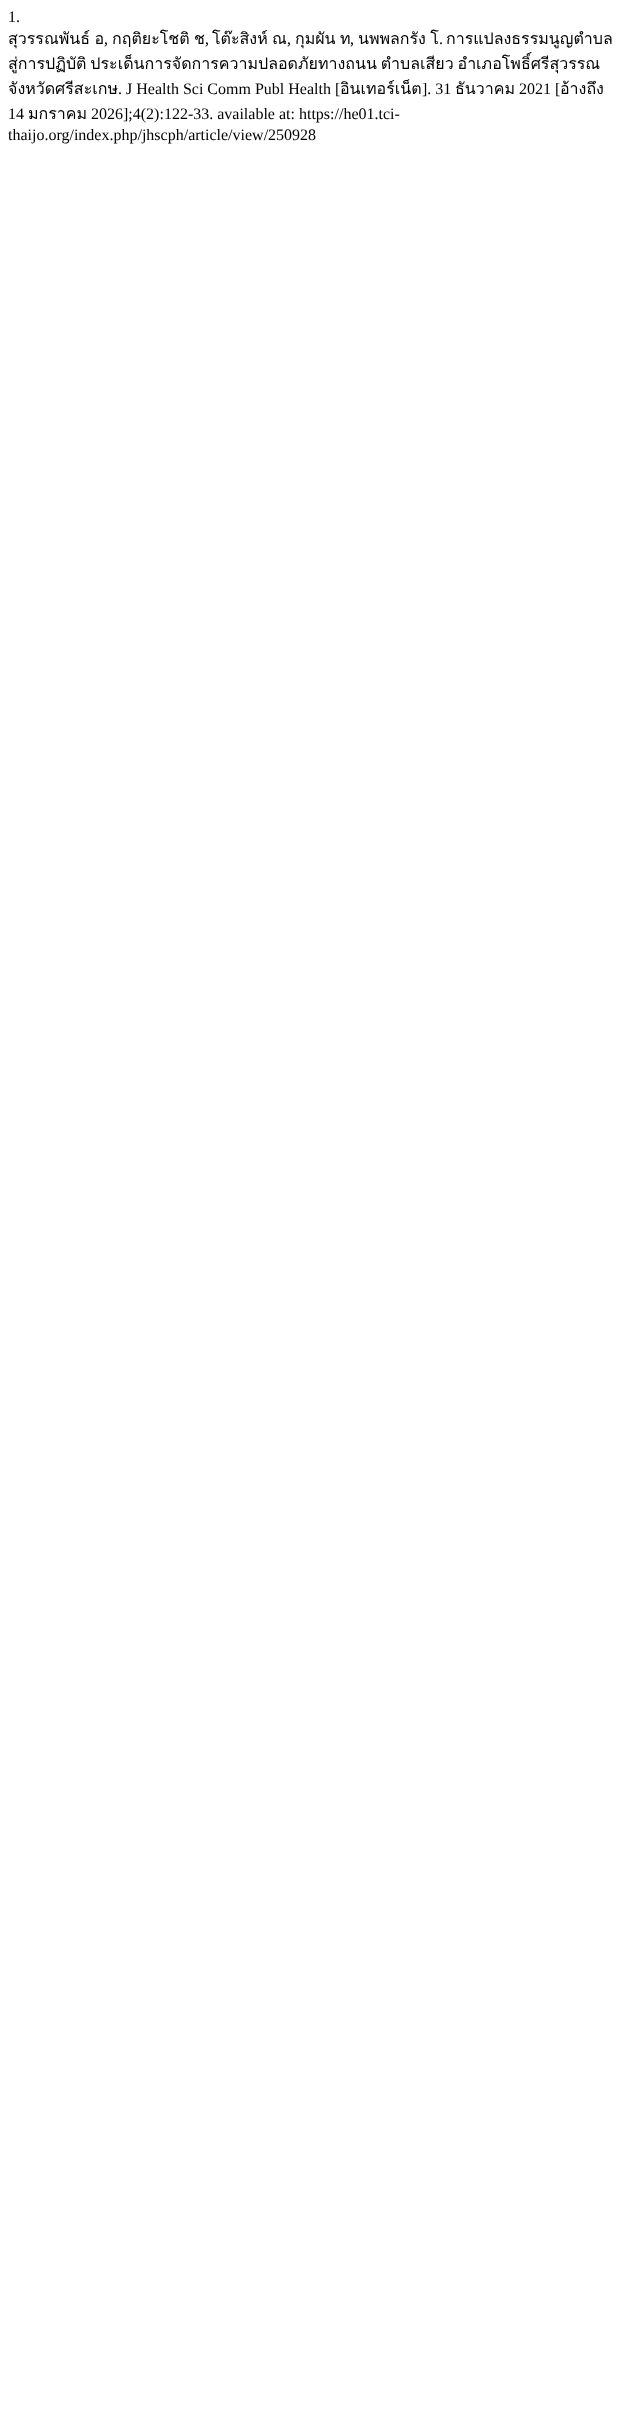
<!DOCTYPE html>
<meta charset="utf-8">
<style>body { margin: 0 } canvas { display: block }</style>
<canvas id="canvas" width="624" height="2413"></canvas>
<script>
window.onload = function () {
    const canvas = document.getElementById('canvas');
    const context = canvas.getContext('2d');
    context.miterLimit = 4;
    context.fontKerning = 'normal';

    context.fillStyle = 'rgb(255, 255, 255)';
    context.fillRect(0, 0, 624, 2413);
    context.font = '16px Liberation Serif';
    context.fillStyle = 'rgb(0, 0, 0)';
    context.fillText('1.', 8, 22);
    context.wordSpacing = '-1px';
    context.font = '16px Loma';
    context.fillText('สุวรรณพันธ์ อ', 8, 44);
    context.wordSpacing = '0px';
    context.font = '16px Liberation Serif';
    context.fillText(',', 104, 44);
    context.wordSpacing = '-1px';
    context.font = '16px Loma';
    context.fillText('กฤติยะโชติ ช', 112, 44);
    context.wordSpacing = '0px';
    context.font = '16px Liberation Serif';
    context.fillText(',', 205, 44);
    context.wordSpacing = '-1px';
    context.font = '16px Loma';
    context.fillText('โต๊ะสิงห์ ณ', 212, 44);
    context.wordSpacing = '0px';
    context.font = '16px Liberation Serif';
    context.fillText(',', 287, 44);
    context.wordSpacing = '-1px';
    context.font = '16px Loma';
    context.fillText('กุมผัน ท', 295, 44);
    context.wordSpacing = '0px';
    context.font = '16px Liberation Serif';
    context.fillText(',', 350, 44);
    context.wordSpacing = '-1px';
    context.font = '16px Loma';
    context.fillText('นพพลกรัง โ', 358, 44);
    context.wordSpacing = '0px';
    context.font = '16px Liberation Serif';
    context.fillText('.', 439, 44);
    context.font = '16px Loma';
    context.fillText('การแปลงธรรมนูญตำบล', 446, 44);
    context.wordSpacing = '-1.5px';
    context.fillText('สู่การปฏิบัติ ประเด็นการจัดการความปลอดภัยทางถนน ตำบลเสียว อำเภอโพธิ์ศรีสุวรรณ', 8, 69);
    context.wordSpacing = '0px';
    context.fillText('จังหวัดศรีสะเกษ', 8, 94);
    context.font = '16px Liberation Serif';
    context.fillText('. J Health Sci Comm Publ Health [', 118, 94);
    context.font = '16px Loma';
    context.fillText('อินเทอร์เน็ต', 340, 94);
    context.font = '16px Liberation Serif';
    context.fillText(']. 31', 422, 94);
    context.font = '16px Loma';
    context.fillText('ธันวาคม', 455, 94);
    context.font = '16px Liberation Serif';
    context.fillText('2021 [', 519, 94);
    context.font = '16px Loma';
    context.fillText('อ้างถึง', 560, 94);
    context.font = '16px Liberation Serif';
    context.fillText('14', 8, 119);
    context.font = '16px Loma';
    context.fillText('มกราคม', 28, 119);
    context.font = '16px Liberation Serif';
    context.fillText('2026];4(2):122-33. available at: https://he01.tci-', 91, 119);
    context.fillText('thaijo.org/index.php/jhscph/article/view/250928', 8, 140);
};
</script>
